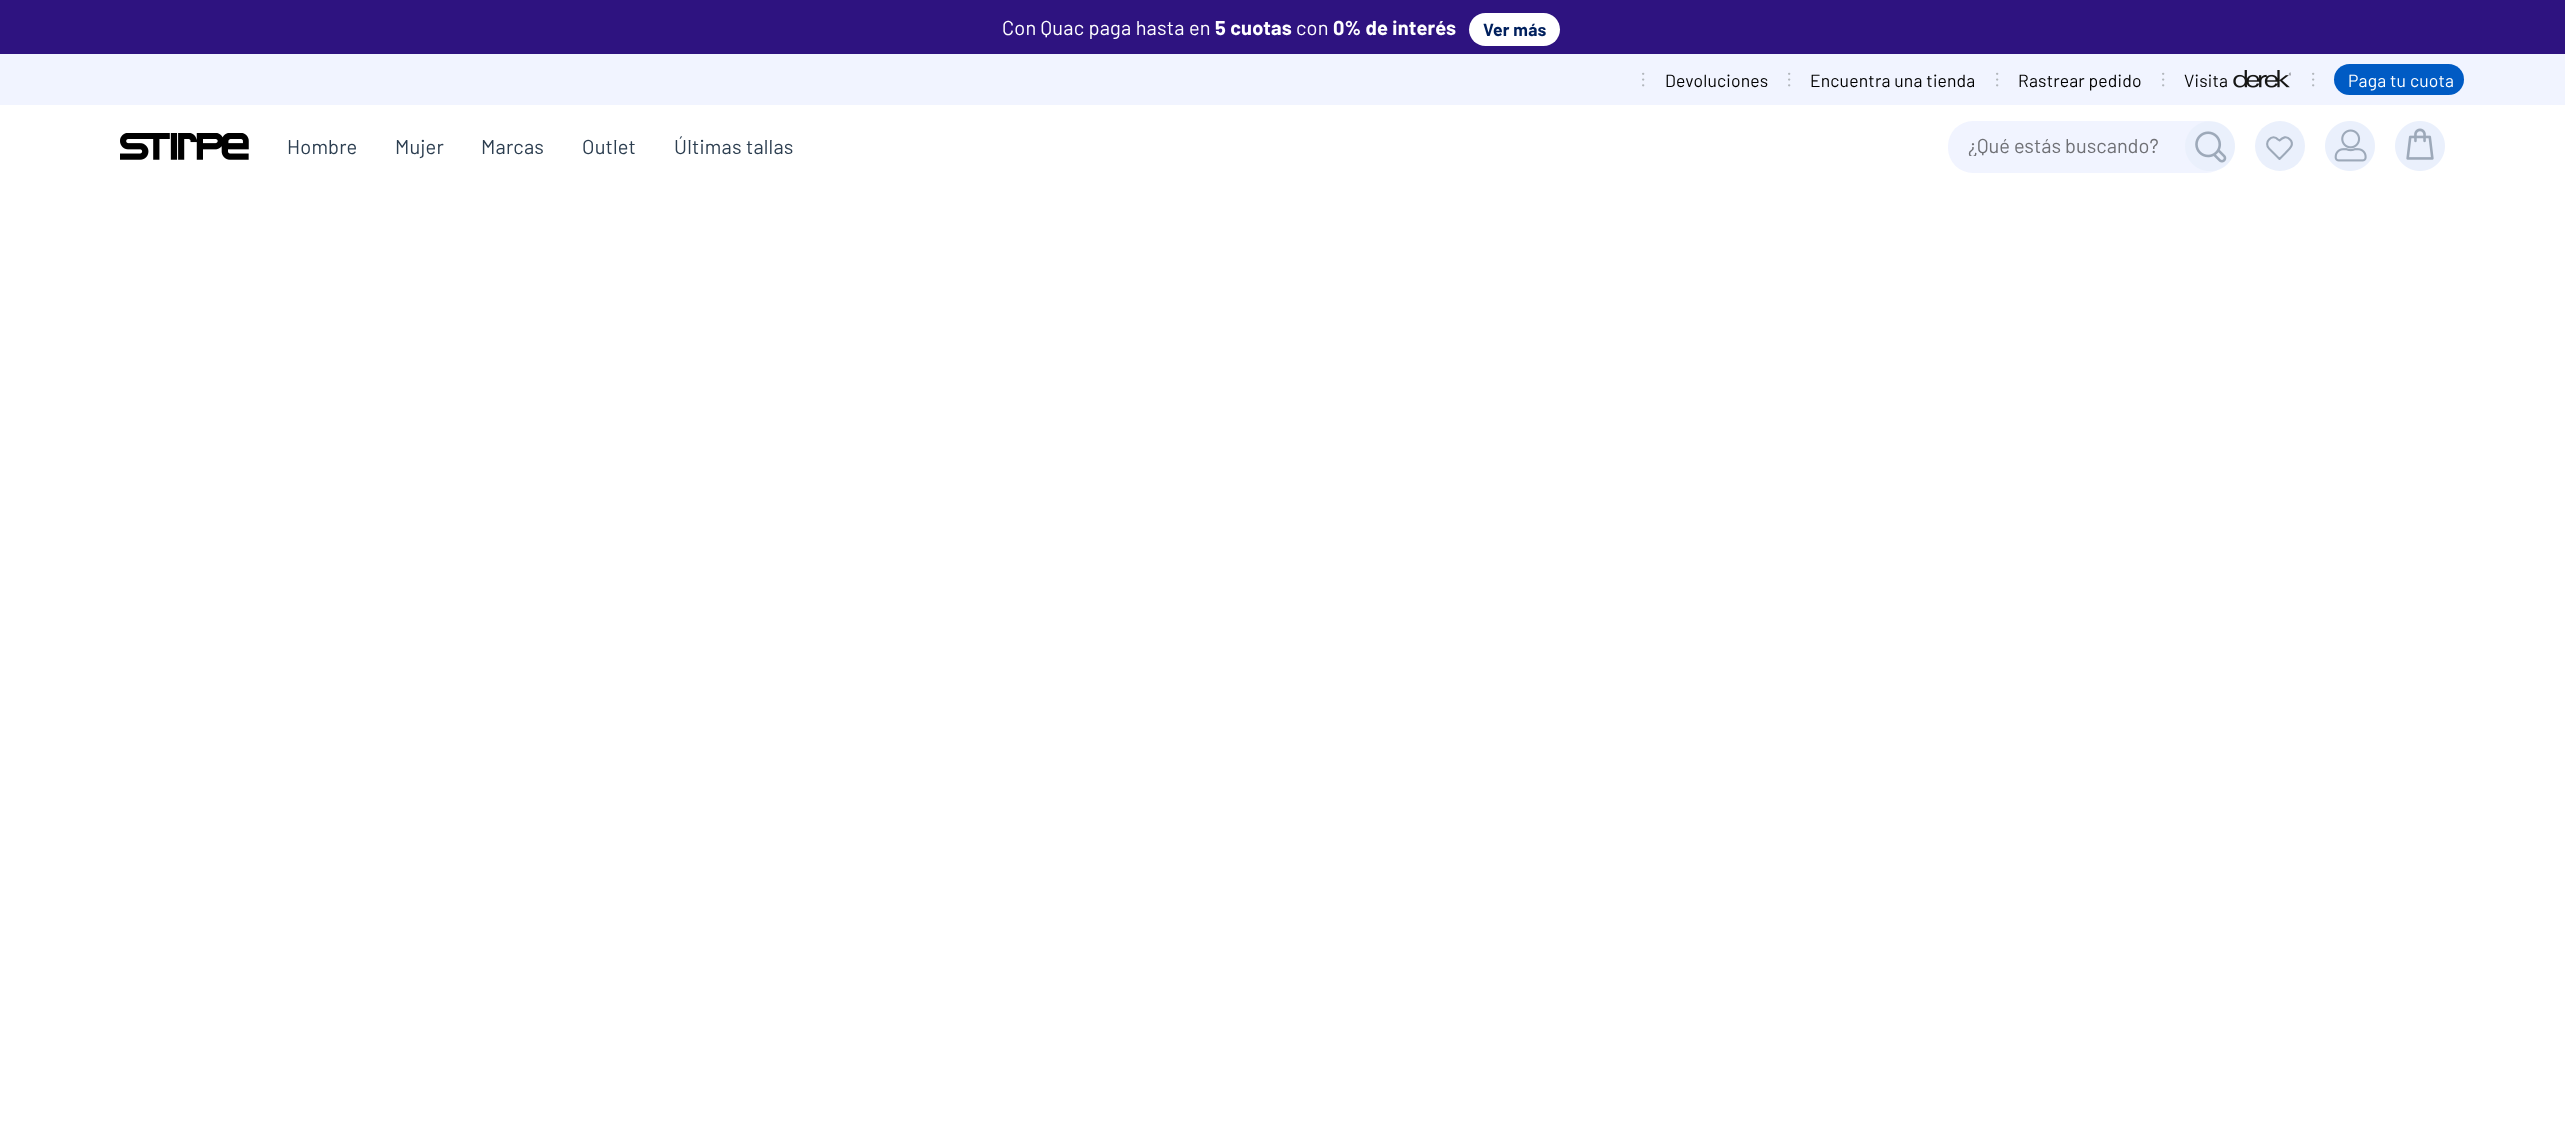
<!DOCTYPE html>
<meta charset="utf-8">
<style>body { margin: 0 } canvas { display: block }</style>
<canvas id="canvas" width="2565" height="1141"></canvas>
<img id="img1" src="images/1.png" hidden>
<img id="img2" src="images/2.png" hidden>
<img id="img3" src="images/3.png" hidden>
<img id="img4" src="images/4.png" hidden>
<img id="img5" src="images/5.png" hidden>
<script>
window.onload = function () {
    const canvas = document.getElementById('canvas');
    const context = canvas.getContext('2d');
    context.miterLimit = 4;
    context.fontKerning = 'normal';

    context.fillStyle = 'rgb(255, 255, 255)';
    context.fillRect(0, 0, 2565, 1141);
    context.fillStyle = 'rgb(46, 19, 128)';
    context.fillRect(0, 0, 2565, 54);
    context.fillStyle = 'rgb(255, 255, 255)';
    context.beginPath();
    context.roundRect(1469, 13, 91, 33, 16.5);
    context.fill();
    context.fillStyle = 'rgb(241, 244, 255)';
    context.fillRect(0, 54, 2565, 51);
    context.drawImage(document.getElementById('img1'), 2233, 70, 58, 18);
    context.fillStyle = 'rgb(0, 91, 196)';
    context.beginPath();
    context.roundRect(2334, 64, 130, 31, 15.5);
    context.fill();
    context.drawImage(document.getElementById('img2'), 120, 133, 129, 27);
    context.fillStyle = 'rgb(241, 244, 255)';
    context.beginPath();
    context.roundRect(1948, 121, 283, 52, 25);
    context.fill();
    context.drawImage(document.getElementById('img3'), 2185, 121, 50, 50);
    context.fillStyle = 'rgb(234, 240, 252)';
    context.beginPath();
    context.arc(2280, 146, 25, 0, 2 * Math.PI);
    context.fill();
    context.beginPath();
    context.moveTo(2290, 139.5);
    context.bezierCurveTo(2286.5, 135.5, 2282.5, 137.5, 2279.5, 140.5);
    context.lineTo(2278, 139.5);
    context.bezierCurveTo(2275.5, 136.5, 2271.5, 136.5, 2269, 139.5);
    context.bezierCurveTo(2266.5, 142, 2266.5, 146, 2269, 148.5);
    context.lineTo(2279.5, 159);
    context.lineTo(2285.5, 153);
    context.bezierCurveTo(2289, 149.5, 2295, 144.5, 2290, 139.5);
    context.closePath();
    context.strokeStyle = 'rgb(157, 169, 185)';
    context.lineWidth = 2.1;
    context.lineCap = 'round';
    context.lineJoin = 'round';
    context.stroke();
    context.drawImage(document.getElementById('img4'), 2325, 121, 50, 50);
    context.drawImage(document.getElementById('img5'), 2395, 121, 50, 50);
    context.letterSpacing = '0.2px';
    context.font = '20px Barlow';
    context.fillStyle = 'rgb(255, 255, 255)';
    context.fillText('Con Quac paga hasta en', 1002, 35);
    context.font = 'bold 20px Barlow';
    context.fillText('5 cuotas', 1215, 35);
    context.font = '20px Barlow';
    context.fillText('con', 1296, 35);
    context.font = 'bold 20px Barlow';
    context.fillText('0% de interés', 1333, 35);
    context.font = 'bold 17.5px Barlow';
    context.fillStyle = 'rgb(0, 32, 93)';
    context.fillText('Ver más', 1483, 36);
    context.font = '20px Barlow';
    context.fillStyle = 'rgb(178, 183, 188)';
    context.save();
    context.translate(1642, 71);
    context.rotate(90 * Math.PI / 180);
    context.fillText('...', 0, 0);
    context.restore();
    context.font = '17.5px Barlow';
    context.fillStyle = 'rgb(0, 0, 0)';
    context.fillText('Devoluciones', 1665, 87);
    context.font = '20px Barlow';
    context.fillStyle = 'rgb(178, 183, 188)';
    context.save();
    context.translate(1788, 71);
    context.rotate(90 * Math.PI / 180);
    context.fillText('...', 0, 0);
    context.restore();
    context.font = '17.5px Barlow';
    context.fillStyle = 'rgb(0, 0, 0)';
    context.fillText('Encuentra una tienda', 1810, 87);
    context.font = '20px Barlow';
    context.fillStyle = 'rgb(178, 183, 188)';
    context.save();
    context.translate(1996, 71);
    context.rotate(90 * Math.PI / 180);
    context.fillText('...', 0, 0);
    context.restore();
    context.font = '17.5px Barlow';
    context.fillStyle = 'rgb(0, 0, 0)';
    context.fillText('Rastrear pedido', 2018, 87);
    context.font = '20px Barlow';
    context.fillStyle = 'rgb(178, 183, 188)';
    context.save();
    context.translate(2162, 71);
    context.rotate(90 * Math.PI / 180);
    context.fillText('...', 0, 0);
    context.restore();
    context.font = '17.5px Barlow';
    context.fillStyle = 'rgb(0, 0, 0)';
    context.fillText('Visita', 2184, 87);
    context.font = '20px Barlow';
    context.fillStyle = 'rgb(178, 183, 188)';
    context.save();
    context.translate(2312, 71);
    context.rotate(90 * Math.PI / 180);
    context.fillText('...', 0, 0);
    context.restore();
    context.font = '17.5px Barlow';
    context.fillStyle = 'rgb(255, 255, 255)';
    context.fillText('Paga tu cuota', 2348, 87);
    context.font = '20px Barlow';
    context.fillStyle = 'rgb(44, 62, 80)';
    context.fillText('Hombre', 287, 154);
    context.fillText('Mujer', 395, 154);
    context.fillText('Marcas', 481, 154);
    context.fillText('Outlet', 582, 154);
    context.fillText('Últimas tallas', 674, 154);
    context.save();
    context.beginPath();
    context.rect(1968, 133, 213, 23);
    context.clip();
    context.letterSpacing = '0px';
    context.fillStyle = 'rgb(111, 112, 117)';
    context.fillText('¿Qué estás buscando?', 1968, 153);
    context.restore();
};
</script>
